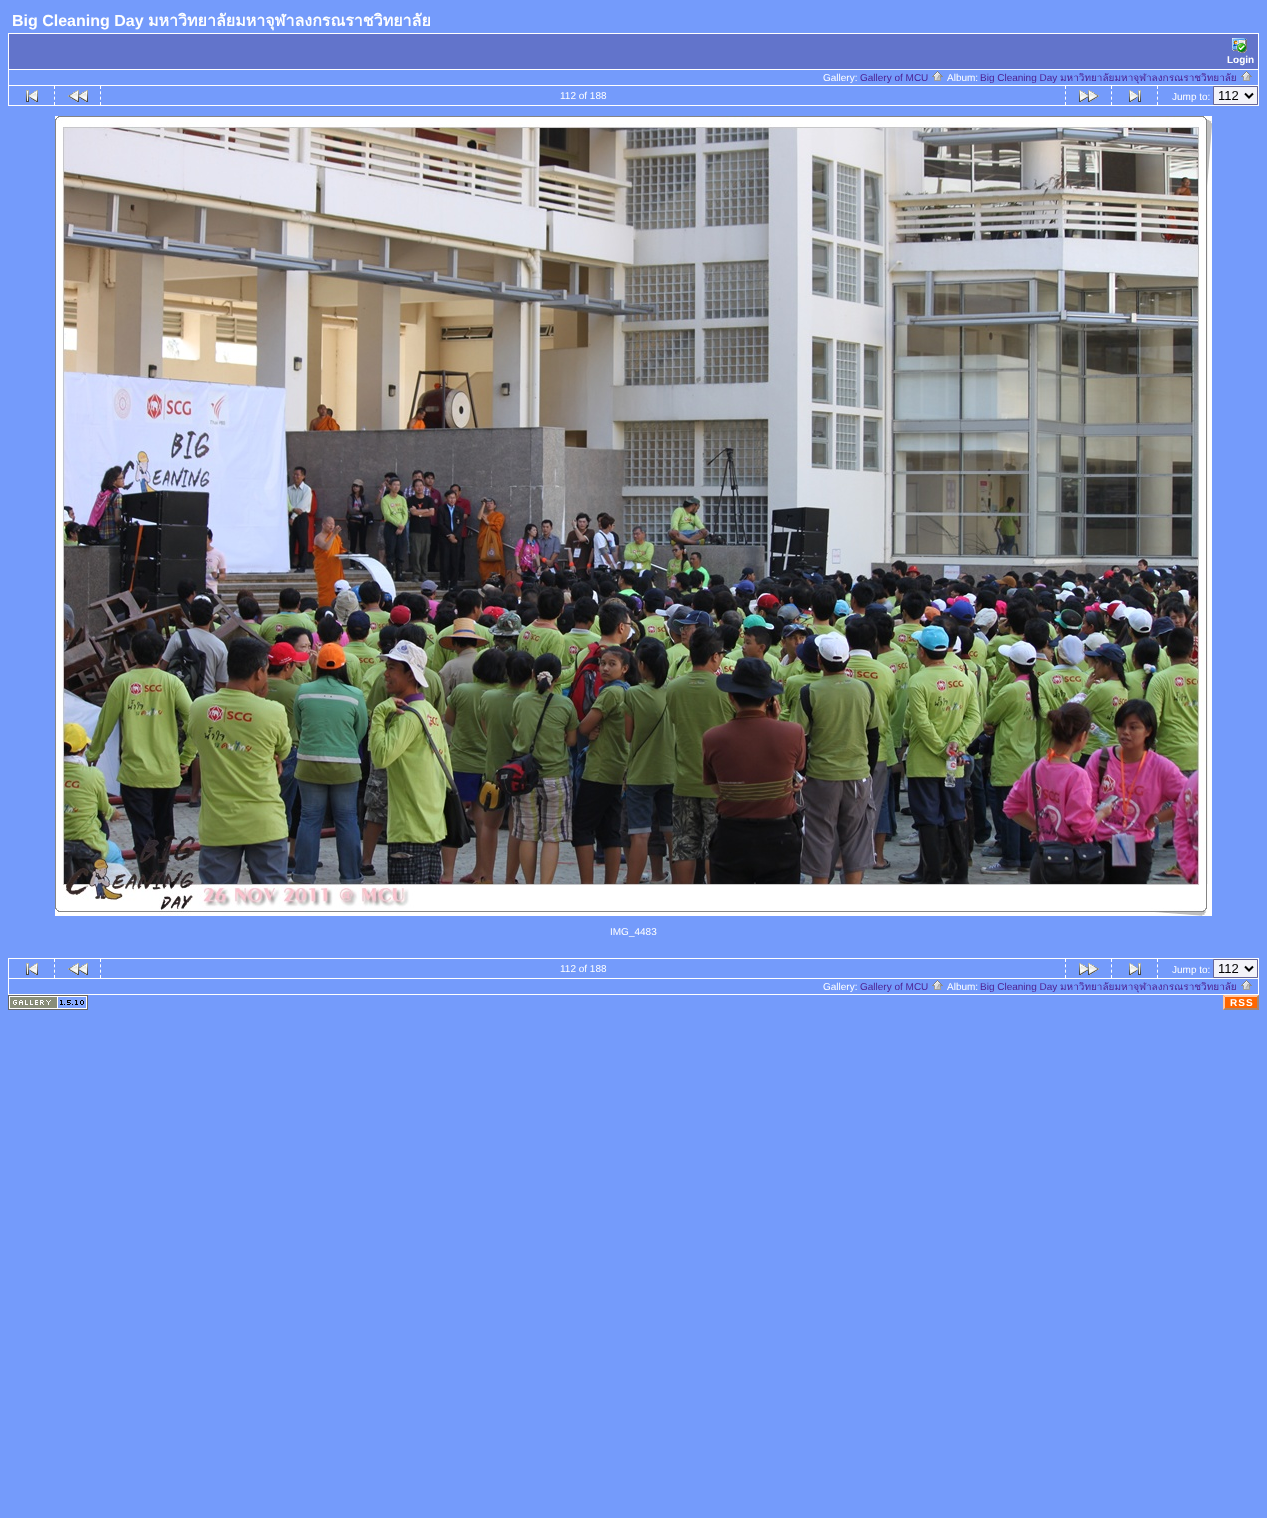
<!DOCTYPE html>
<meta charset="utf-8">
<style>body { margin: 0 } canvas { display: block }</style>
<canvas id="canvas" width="1267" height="1518"></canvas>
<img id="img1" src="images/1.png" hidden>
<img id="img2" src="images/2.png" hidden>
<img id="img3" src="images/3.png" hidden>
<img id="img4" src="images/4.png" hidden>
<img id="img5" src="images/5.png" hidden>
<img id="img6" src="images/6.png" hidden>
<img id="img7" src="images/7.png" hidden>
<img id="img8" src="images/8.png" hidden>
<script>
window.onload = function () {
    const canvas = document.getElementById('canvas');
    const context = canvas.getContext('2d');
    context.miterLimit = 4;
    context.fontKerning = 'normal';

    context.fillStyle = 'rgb(116, 155, 251)';
    context.fillRect(0, 0, 1267, 1518);
    context.strokeStyle = 'rgb(255, 255, 255)';
    context.strokeRect(8.5, 33.5, 1250, 36);
    context.fillStyle = 'rgb(98, 116, 203)';
    context.fillRect(9, 34, 1249, 35);
    context.drawImage(document.getElementById('img1'), 1232, 38, 15, 15);
    context.fillStyle = 'rgb(255, 255, 255)';
    context.fillRect(1258, 70, 1, 36);
    context.fillRect(8, 85, 1251, 1);
    context.fillRect(8, 70, 1, 16);
    context.drawImage(document.getElementById('img2'), 932, 71, 11, 10);
    context.drawImage(document.getElementById('img2'), 1241, 71, 11, 10);
    context.fillRect(8, 105, 1251, 1);
    context.fillRect(8, 86, 1, 20);
    context.beginPath();
    context.moveTo(54.5, 86);
    context.lineTo(54.5, 105);
    context.moveTo(100.5, 86);
    context.lineTo(100.5, 105);
    context.setLineDash([3, 2.33]);
    context.stroke();
    context.drawImage(document.getElementById('img3'), 26, 90, 12, 12);
    context.beginPath();
    context.moveTo(1065.5, 86);
    context.lineTo(1065.5, 105);
    context.moveTo(1111.5, 86);
    context.lineTo(1111.5, 105);
    context.stroke();
    context.drawImage(document.getElementById('img4'), 1079, 90, 20, 12);
    context.drawImage(document.getElementById('img5'), 68, 90, 20, 12);
    context.drawImage(document.getElementById('img6'), 1129, 90, 12, 12);
    context.beginPath();
    context.moveTo(1157.5, 86);
    context.lineTo(1157.5, 105);
    context.stroke();
    context.fillStyle = 'rgb(243, 243, 249)';
    context.beginPath();
    context.rect(1213.5, 86.5, 44, 18);
    context.fill();
    context.strokeStyle = 'rgb(102, 102, 153)';
    context.setLineDash([]);
    context.stroke();
    context.beginPath();
    context.moveTo(1245, 93.5);
    context.lineTo(1249, 97.5);
    context.lineTo(1253, 93.5);
    context.strokeStyle = 'rgb(0, 0, 0)';
    context.lineWidth = 2;
    context.stroke();
    context.drawImage(document.getElementById('img7'), 55, 116, 1157, 800);
    context.strokeStyle = 'rgb(255, 255, 255)';
    context.lineWidth = 1;
    context.strokeRect(8.5, 958.5, 1250, 20);
    context.beginPath();
    context.moveTo(54.5, 959);
    context.lineTo(54.5, 978);
    context.moveTo(100.5, 959);
    context.lineTo(100.5, 978);
    context.setLineDash([3, 2.33]);
    context.stroke();
    context.drawImage(document.getElementById('img3'), 26, 963, 12, 12);
    context.beginPath();
    context.moveTo(1065.5, 959);
    context.lineTo(1065.5, 978);
    context.moveTo(1111.5, 959);
    context.lineTo(1111.5, 978);
    context.stroke();
    context.drawImage(document.getElementById('img4'), 1079, 963, 20, 12);
    context.drawImage(document.getElementById('img5'), 68, 963, 20, 12);
    context.drawImage(document.getElementById('img6'), 1129, 963, 12, 12);
    context.beginPath();
    context.moveTo(1157.5, 959);
    context.lineTo(1157.5, 978);
    context.stroke();
    context.beginPath();
    context.rect(1213.5, 959.5, 44, 18);
    context.fill();
    context.strokeStyle = 'rgb(102, 102, 153)';
    context.setLineDash([]);
    context.stroke();
    context.beginPath();
    context.moveTo(1245, 966.5);
    context.lineTo(1249, 970.5);
    context.lineTo(1253, 966.5);
    context.strokeStyle = 'rgb(0, 0, 0)';
    context.lineWidth = 2;
    context.stroke();
    context.fillStyle = 'rgb(255, 255, 255)';
    context.fillRect(1258, 979, 1, 16);
    context.fillRect(8, 994, 1251, 1);
    context.fillRect(8, 979, 1, 16);
    context.drawImage(document.getElementById('img2'), 932, 980, 11, 10);
    context.drawImage(document.getElementById('img2'), 1241, 980, 11, 10);
    context.drawImage(document.getElementById('img8'), 8, 995, 80, 15);
    context.fillStyle = 'rgb(255, 102, 0)';
    context.fillRect(1223, 995, 36, 15);
    context.fillStyle = 'rgb(255, 200, 164)';
    context.beginPath();
    context.moveTo(1223, 995);
    context.lineTo(1259, 995);
    context.lineTo(1257, 997);
    context.lineTo(1225, 997);
    context.closePath();
    context.fill();
    context.fillStyle = 'rgb(170, 133, 109)';
    context.beginPath();
    context.moveTo(1259, 995);
    context.lineTo(1259, 1010);
    context.lineTo(1257, 1008);
    context.lineTo(1257, 997);
    context.closePath();
    context.fill();
    context.beginPath();
    context.moveTo(1259, 1010);
    context.lineTo(1223, 1010);
    context.lineTo(1225, 1008);
    context.lineTo(1257, 1008);
    context.closePath();
    context.fill();
    context.fillStyle = 'rgb(255, 200, 164)';
    context.beginPath();
    context.moveTo(1223, 1010);
    context.lineTo(1223, 995);
    context.lineTo(1225, 997);
    context.lineTo(1225, 1008);
    context.closePath();
    context.fill();
    context.font = 'bold 16px Liberation Sans';
    context.fillStyle = 'rgb(255, 255, 255)';
    context.fillText('Big Cleaning Day', 12, 26);
    context.font = 'bold 16px Loma';
    context.fillText('มหาวิทยาลัยมหาจุฬาลงกรณราชวิทยาลัย', 148, 26);
    context.font = 'bold 10px Liberation Sans';
    context.fillText('Login', 1227, 63);
    context.font = '10px Liberation Sans';
    context.fillText('Gallery:', 823, 81);
    context.fillStyle = 'rgb(78, 33, 146)';
    context.fillText('Gallery of MCU', 860, 81);
    context.fillStyle = 'rgb(255, 255, 255)';
    context.fillText('Album:', 947, 81);
    context.fillStyle = 'rgb(78, 33, 146)';
    context.fillText('Big Cleaning Day', 980, 81);
    context.font = '10px Loma';
    context.fillText('มหาวิทยาลัยมหาจุฬาลงกรณราชวิทยาลัย', 1060, 81);
    context.font = '10px Liberation Sans';
    context.fillStyle = 'rgb(255, 255, 255)';
    context.fillText('112 of 188', 560, 99);
    context.fillText('Jump to:', 1172, 100);
    context.font = '13px Liberation Sans';
    context.fillStyle = 'rgb(0, 0, 0)';
    context.fillText('112', 1218, 100);
    context.font = '10px Liberation Sans';
    context.fillStyle = 'rgb(255, 255, 255)';
    context.fillText('IMG_4483', 610, 935);
    context.fillText('112 of 188', 560, 972);
    context.fillText('Jump to:', 1172, 973);
    context.font = '13px Liberation Sans';
    context.fillStyle = 'rgb(0, 0, 0)';
    context.fillText('112', 1218, 973);
    context.font = '10px Liberation Sans';
    context.fillStyle = 'rgb(255, 255, 255)';
    context.fillText('Gallery:', 823, 990);
    context.fillStyle = 'rgb(78, 33, 146)';
    context.fillText('Gallery of MCU', 860, 990);
    context.fillStyle = 'rgb(255, 255, 255)';
    context.fillText('Album:', 947, 990);
    context.fillStyle = 'rgb(78, 33, 146)';
    context.fillText('Big Cleaning Day', 980, 990);
    context.font = '10px Loma';
    context.fillText('มหาวิทยาลัยมหาจุฬาลงกรณราชวิทยาลัย', 1060, 990);
    context.letterSpacing = '1px';
    context.font = 'bold 10px Liberation Sans';
    context.fillStyle = 'rgb(255, 255, 255)';
    context.fillText('RSS', 1230, 1006);
};
</script>
